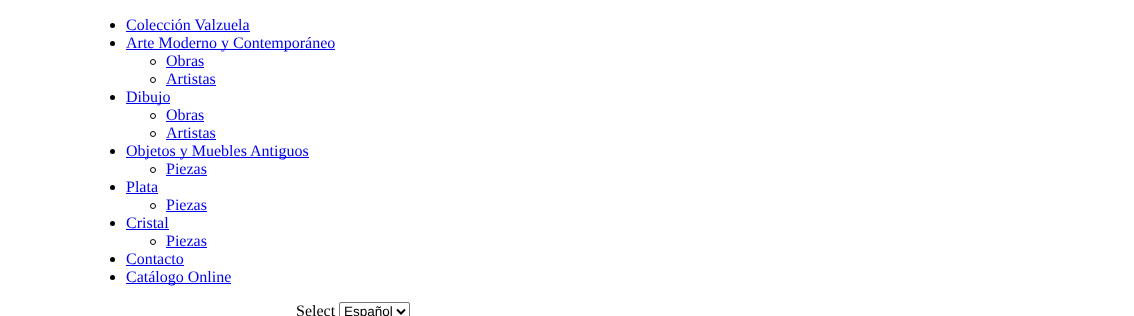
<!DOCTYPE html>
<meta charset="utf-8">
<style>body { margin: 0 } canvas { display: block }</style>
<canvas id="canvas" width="1134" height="316"></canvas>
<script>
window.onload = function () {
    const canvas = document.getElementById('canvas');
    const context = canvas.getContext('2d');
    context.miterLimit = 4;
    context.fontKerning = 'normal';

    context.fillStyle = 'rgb(255, 255, 255)';
    context.fillRect(0, 0, 1134, 316);
    context.fillStyle = 'rgb(0, 0, 0)';
    context.beginPath();
    context.arc(112.5, 25.5, 2.5, 0, 2 * Math.PI);
    context.fill();
    context.fillStyle = 'rgb(0, 0, 238)';
    context.fillRect(126, 31, 124, 1);
    context.fillStyle = 'rgb(0, 0, 0)';
    context.beginPath();
    context.arc(112.5, 43.5, 2.5, 0, 2 * Math.PI);
    context.fill();
    context.fillStyle = 'rgb(0, 0, 238)';
    context.fillRect(126, 49, 209, 1);
    context.beginPath();
    context.arc(153, 62, 2.5, 0, 2 * Math.PI);
    context.strokeStyle = 'rgb(0, 0, 0)';
    context.stroke();
    context.fillRect(166, 67, 38, 1);
    context.beginPath();
    context.arc(153, 80, 2.5, 0, 2 * Math.PI);
    context.stroke();
    context.fillRect(166, 85, 50, 1);
    context.fillStyle = 'rgb(0, 0, 0)';
    context.beginPath();
    context.arc(112.5, 97.5, 2.5, 0, 2 * Math.PI);
    context.fill();
    context.fillStyle = 'rgb(0, 0, 238)';
    context.fillRect(126, 103, 44, 1);
    context.beginPath();
    context.arc(153, 116, 2.5, 0, 2 * Math.PI);
    context.stroke();
    context.fillRect(166, 121, 38, 1);
    context.beginPath();
    context.arc(153, 134, 2.5, 0, 2 * Math.PI);
    context.stroke();
    context.fillRect(166, 139, 50, 1);
    context.fillStyle = 'rgb(0, 0, 0)';
    context.beginPath();
    context.arc(112.5, 151.5, 2.5, 0, 2 * Math.PI);
    context.fill();
    context.fillStyle = 'rgb(0, 0, 238)';
    context.fillRect(126, 157, 183, 1);
    context.beginPath();
    context.arc(153, 170, 2.5, 0, 2 * Math.PI);
    context.stroke();
    context.fillRect(166, 175, 41, 1);
    context.fillStyle = 'rgb(0, 0, 0)';
    context.beginPath();
    context.arc(112.5, 187.5, 2.5, 0, 2 * Math.PI);
    context.fill();
    context.fillStyle = 'rgb(0, 0, 238)';
    context.fillRect(126, 193, 32, 1);
    context.beginPath();
    context.arc(153, 206, 2.5, 0, 2 * Math.PI);
    context.stroke();
    context.fillRect(166, 211, 41, 1);
    context.fillStyle = 'rgb(0, 0, 0)';
    context.beginPath();
    context.arc(112.5, 223.5, 2.5, 0, 2 * Math.PI);
    context.fill();
    context.fillStyle = 'rgb(0, 0, 238)';
    context.fillRect(126, 229, 43, 1);
    context.beginPath();
    context.arc(153, 242, 2.5, 0, 2 * Math.PI);
    context.stroke();
    context.fillRect(166, 247, 41, 1);
    context.fillStyle = 'rgb(0, 0, 0)';
    context.beginPath();
    context.arc(112.5, 259.5, 2.5, 0, 2 * Math.PI);
    context.fill();
    context.fillStyle = 'rgb(0, 0, 238)';
    context.fillRect(126, 265, 58, 1);
    context.fillStyle = 'rgb(0, 0, 0)';
    context.beginPath();
    context.arc(112.5, 277.5, 2.5, 0, 2 * Math.PI);
    context.fill();
    context.fillStyle = 'rgb(0, 0, 238)';
    context.fillRect(126, 283, 105, 1);
    context.beginPath();
    context.roundRect(339.5, 302.5, 70, 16, 1.5);
    context.strokeStyle = 'rgb(118, 118, 118)';
    context.stroke();
    context.beginPath();
    context.moveTo(397, 309.5);
    context.lineTo(401, 313.5);
    context.lineTo(405, 309.5);
    context.strokeStyle = 'rgb(0, 0, 0)';
    context.lineWidth = 2;
    context.stroke();
    context.font = '16px Liberation Serif';
    context.fillText('Colección Valzuela', 126, 30);
    context.fillText('Arte Moderno y Contemporáneo', 126, 48);
    context.fillText('Obras', 166, 66);
    context.fillText('Artistas', 166, 84);
    context.fillText('Dibujo', 126, 102);
    context.fillText('Obras', 166, 120);
    context.fillText('Artistas', 166, 138);
    context.fillText('Objetos y Muebles Antiguos', 126, 156);
    context.fillText('Piezas', 166, 174);
    context.fillText('Plata', 126, 192);
    context.fillText('Piezas', 166, 210);
    context.fillText('Cristal', 126, 228);
    context.fillText('Piezas', 166, 246);
    context.fillText('Contacto', 126, 264);
    context.fillText('Catálogo Online', 126, 282);
    context.fillStyle = 'rgb(0, 0, 0)';
    context.fillText('Select', 296, 316);
    context.font = '13.5px Liberation Sans';
    context.fillText('Español', 344, 316);
};
</script>
